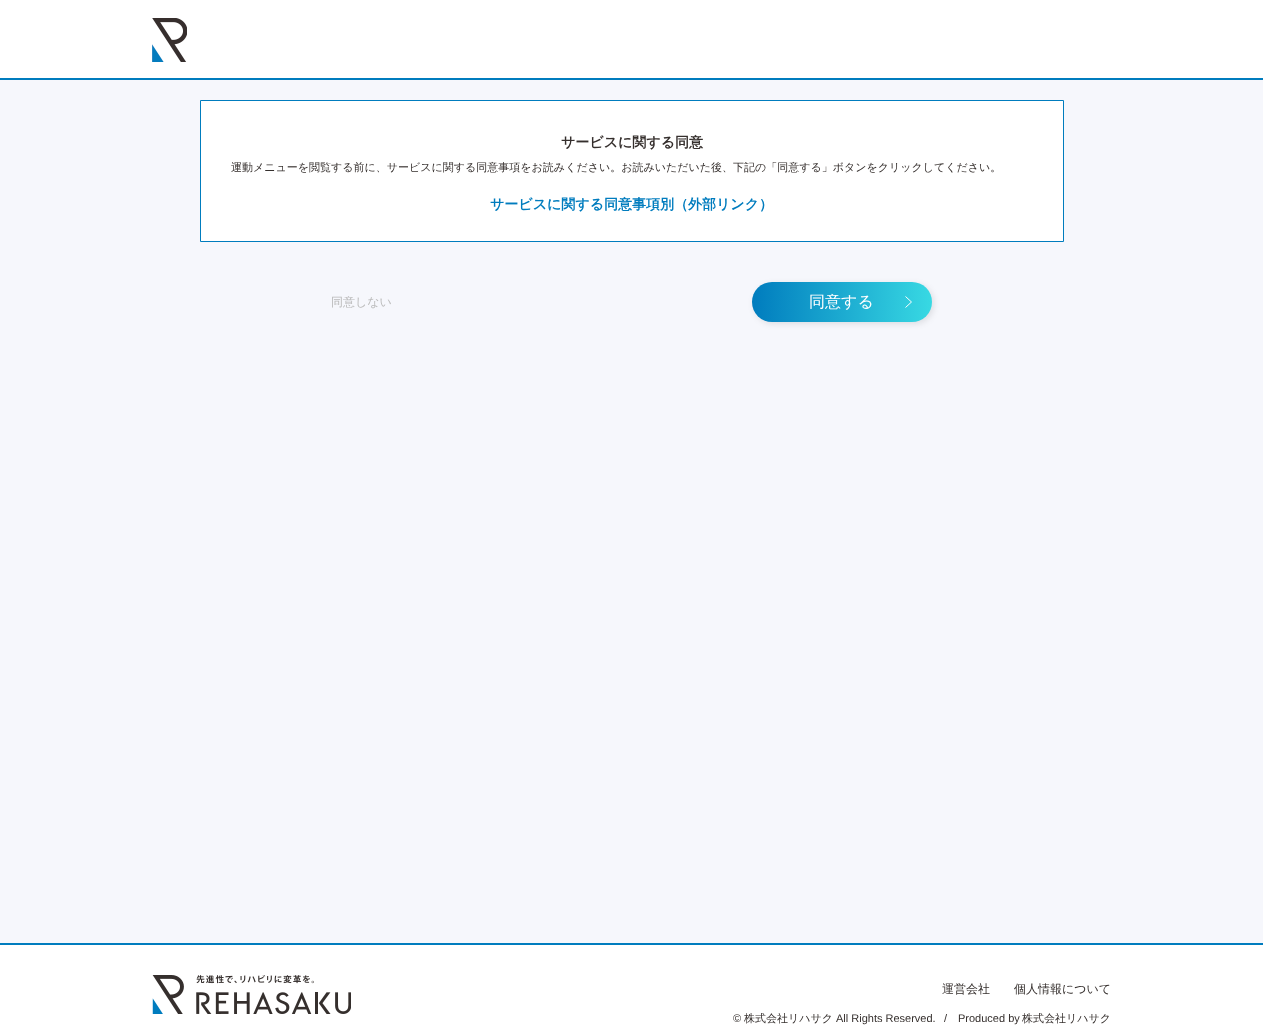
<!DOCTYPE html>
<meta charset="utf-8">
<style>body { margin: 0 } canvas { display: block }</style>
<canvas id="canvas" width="1263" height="1025"></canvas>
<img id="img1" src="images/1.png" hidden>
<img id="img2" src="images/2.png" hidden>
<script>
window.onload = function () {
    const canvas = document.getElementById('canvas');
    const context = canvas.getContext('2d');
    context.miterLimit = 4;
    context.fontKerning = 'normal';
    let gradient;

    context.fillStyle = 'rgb(246, 247, 252)';
    context.fillRect(0, 0, 1263, 1025);
    context.fillStyle = 'rgb(255, 255, 255)';
    context.fillRect(0, 0, 1263, 78);
    context.fillStyle = 'rgb(0, 124, 190)';
    context.fillRect(0, 78, 1263, 2);
    context.drawImage(document.getElementById('img1'), 152, 18, 35, 44);
    context.fillStyle = 'rgb(255, 255, 255)';
    context.beginPath();
    context.rect(200.5, 100.5, 863, 141);
    context.fill();
    context.strokeStyle = 'rgb(0, 124, 190)';
    context.stroke();
    context.fillStyle = 'rgba(0, 0, 0, 0.1)';
    context.filter = 'blur(3px)';
    context.beginPath();
    context.roundRect(754, 284, 180, 40, 20);
    context.fill();
    context.filter = 'none';
    gradient = context.createLinearGradient(752, 300, 932, 304);
    gradient.addColorStop(0, 'rgb(0, 124, 190)');
    gradient.addColorStop(1, 'rgb(56, 217, 227)');
    context.fillStyle = gradient;
    context.beginPath();
    context.roundRect(752, 282, 180, 40, 20);
    context.fill();
    context.beginPath();
    context.moveTo(905.5, 307.5);
    context.lineTo(911.5, 302);
    context.lineTo(905.5, 296.5);
    context.strokeStyle = 'rgb(255, 255, 255)';
    context.stroke();
    context.fillStyle = 'rgb(255, 255, 255)';
    context.fillRect(0, 945, 1263, 80);
    context.fillStyle = 'rgb(0, 124, 190)';
    context.fillRect(0, 943, 1263, 2);
    context.drawImage(document.getElementById('img2'), 152, 975, 199, 39);
    context.font = 'bold 14px WenQuanYi Zen Hei';
    context.fillStyle = 'rgb(53, 47, 45)';
    context.fillText('サービスに関する同意', 561, 147);
    context.font = '500 11px WenQuanYi Zen Hei';
    context.fillText('運動メニューを閲覧する前に、サービスに関する同意事項をお読みください。お読みいただいた後、下記の「同意する」ボタンをクリックしてください。', 231, 171);
    context.font = 'bold 14px WenQuanYi Zen Hei';
    context.fillStyle = 'rgb(0, 124, 190)';
    context.fillText('サービスに関する同意事項別（外部リンク）', 490, 209);
    context.font = '500 12px WenQuanYi Zen Hei';
    context.fillStyle = 'rgb(186, 186, 186)';
    context.fillText('同意しない', 331, 306);
    context.font = '500 16px WenQuanYi Zen Hei';
    context.fillStyle = 'rgb(255, 255, 255)';
    context.fillText('同意する', 809, 307);
    context.font = '500 12px WenQuanYi Zen Hei';
    context.fillStyle = 'rgb(53, 47, 45)';
    context.fillText('運営会社', 942, 993);
    context.fillText('個人情報について', 1014, 993);
    context.font = '11px Liberation Sans';
    context.fillText('©', 733, 1022);
    context.font = '500 11px WenQuanYi Zen Hei';
    context.fillText('株式会社リハサク', 744, 1022);
    context.font = '11px Liberation Sans';
    context.fillText('All Rights Reserved.', 836, 1022);
    context.fillText('/', 944, 1022);
    context.fillText('Produced by', 958, 1022);
    context.font = '500 11px WenQuanYi Zen Hei';
    context.fillText('株式会社リハサク', 1022, 1022);
};
</script>
